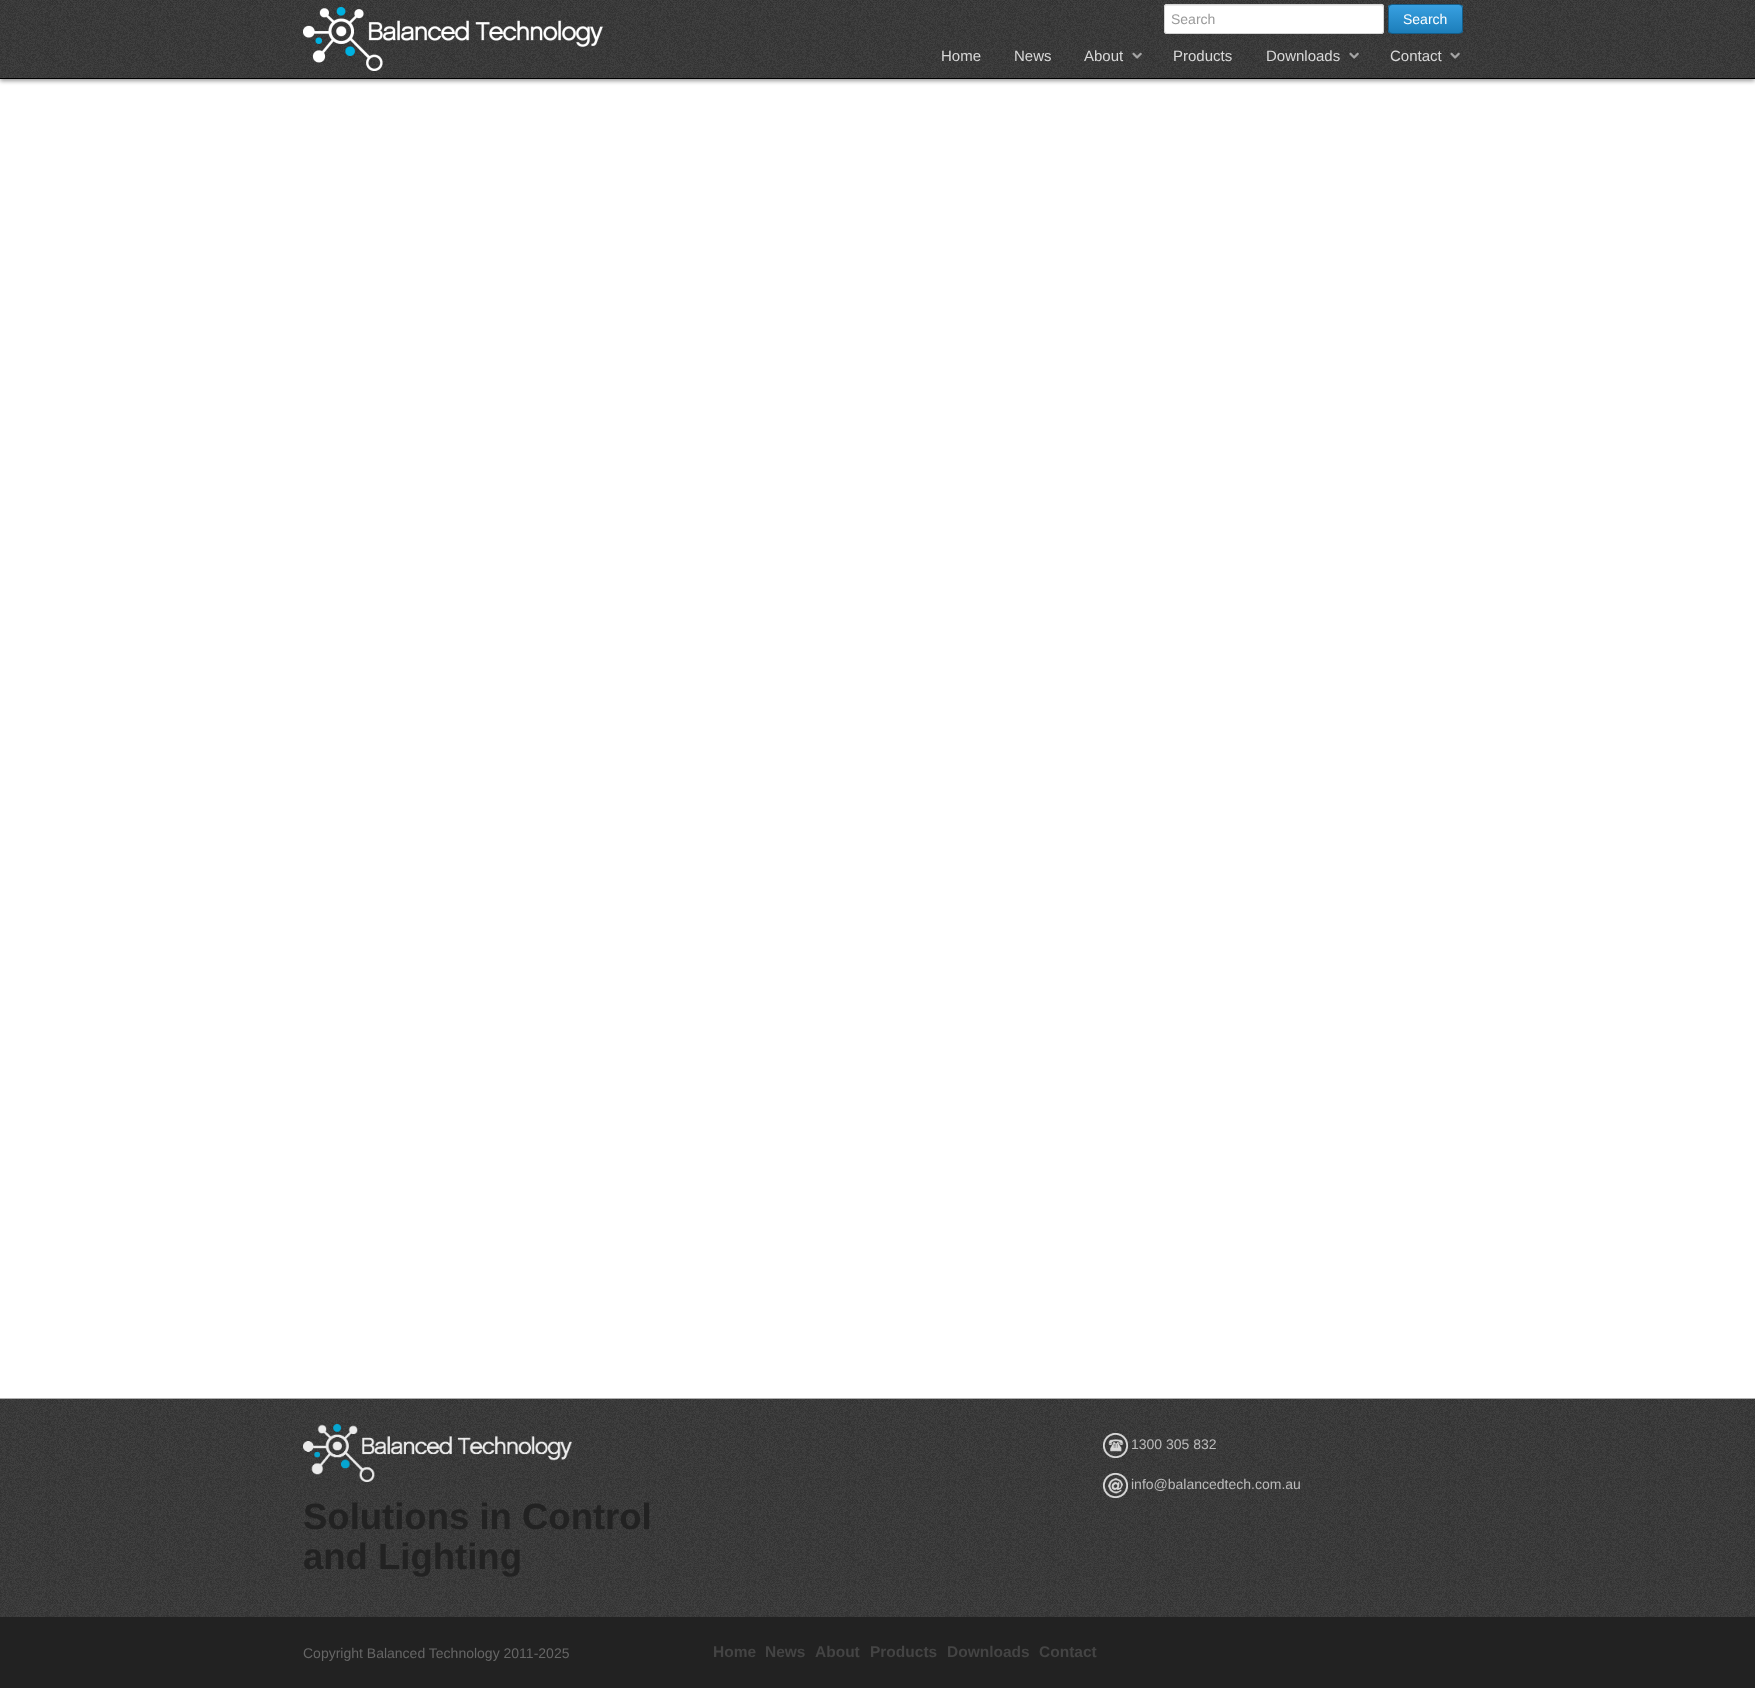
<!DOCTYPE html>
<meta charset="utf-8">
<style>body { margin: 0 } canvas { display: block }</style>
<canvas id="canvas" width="1755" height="1688"></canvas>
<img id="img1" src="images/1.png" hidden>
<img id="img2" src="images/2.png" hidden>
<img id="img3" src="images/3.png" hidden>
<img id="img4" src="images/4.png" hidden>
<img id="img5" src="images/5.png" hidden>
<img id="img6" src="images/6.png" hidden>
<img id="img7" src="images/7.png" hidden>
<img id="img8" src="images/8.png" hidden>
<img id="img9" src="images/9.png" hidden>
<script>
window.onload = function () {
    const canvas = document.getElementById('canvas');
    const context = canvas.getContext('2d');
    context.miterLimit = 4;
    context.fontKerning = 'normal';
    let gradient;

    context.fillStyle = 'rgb(255, 255, 255)';
    context.fillRect(0, 0, 1755, 1688);
    context.fillStyle = 'rgba(0, 0, 0, 0.4)';
    context.filter = 'blur(2px)';
    context.beginPath();
    context.rect(0, 2, 1755, 79);
    context.fill();
    context.filter = 'none';
    context.fillStyle = 'rgb(0, 0, 0)';
    context.fillRect(0, 78, 1755, 1);
    context.fillStyle = 'rgb(54, 54, 54)';
    context.fillRect(0, 0, 1755, 78);
    context.drawImage(document.getElementById('img1'), 0, 0, 1755, 78);
    context.drawImage(document.getElementById('img2'), 303, 7, 300, 64);
    context.fillStyle = 'rgb(255, 255, 255)';
    context.beginPath();
    context.roundRect(1164, 4, 220, 30, 3);
    context.fill();
    context.fillStyle = 'rgb(236, 236, 236)';
    context.beginPath();
    context.moveTo(1167, 6);
    context.lineTo(1381, 6);
    context.bezierCurveTo(1382, 6, 1383, 7, 1383, 8);
    context.bezierCurveTo(1383, 7, 1383, 5, 1381, 5);
    context.lineTo(1167, 5);
    context.lineTo(1166, 6);
    context.lineTo(1165, 8);
    context.bezierCurveTo(1165, 7, 1166, 6, 1167, 6);
    context.closePath();
    context.fill();
    context.beginPath();
    context.roundRect(1164.5, 4.5, 219, 29, 2.5);
    context.strokeStyle = 'rgb(213, 213, 213)';
    context.stroke();
    context.save();
    context.beginPath();
    context.roundRect(1388, 4, 75, 30, 4);
    context.clip();
    gradient = context.createLinearGradient(1426, 5, 1426, 33);
    gradient.addColorStop(0, 'rgb(56, 160, 225)');
    gradient.addColorStop(1, 'rgb(28, 126, 186)');
    context.fillStyle = gradient;
    context.fillRect(1388, 5, 75, 28);
    context.restore();
    context.beginPath();
    context.roundRect(1388.5, 4.5, 74, 29, 3.5);
    context.strokeStyle = 'rgb(21, 93, 137)';
    context.stroke();
    context.drawImage(document.getElementById('img3'), 1132, 52, 10, 7);
    context.drawImage(document.getElementById('img4'), 1349, 52, 10, 7);
    context.drawImage(document.getElementById('img5'), 1450, 52, 10, 7);
    context.fillStyle = 'rgb(54, 54, 54)';
    context.fillRect(0, 1399, 1755, 218);
    context.drawImage(document.getElementById('img6'), 0, 1399, 1755, 218);
    context.fillStyle = 'rgb(175, 175, 175)';
    context.fillRect(0, 1398, 1755, 1);
    context.drawImage(document.getElementById('img7'), 1103, 1433, 25, 25);
    context.drawImage(document.getElementById('img8'), 1103, 1473, 25, 25);
    context.drawImage(document.getElementById('img9'), 303, 1424, 269, 58);
    context.fillStyle = 'rgb(34, 34, 34)';
    context.fillRect(0, 1617, 1755, 71);
    context.font = '14px Liberation Sans';
    context.fillStyle = 'rgb(153, 153, 153)';
    context.fillText('Search', 1171, 24);
    context.fillStyle = 'rgb(255, 255, 255)';
    context.fillText('Search', 1403, 24);
    context.font = '15px Liberation Sans';
    context.fillStyle = 'rgb(216, 216, 216)';
    context.fillText('Home', 941, 61);
    context.fillText('News', 1014, 61);
    context.fillText('About', 1084, 61);
    context.fillText('Products', 1173, 61);
    context.fillText('Downloads', 1266, 61);
    context.fillText('Contact', 1390, 61);
    context.font = '14px Liberation Sans';
    context.fillStyle = 'rgb(187, 187, 187)';
    context.fillText('1300 305 832', 1131, 1449);
    context.fillText('info@balancedtech.com.au', 1131, 1489);
    context.font = 'bold 36.5px Liberation Sans';
    context.fillStyle = 'rgb(34, 34, 34)';
    context.fillText('Solutions in Control', 303, 1529);
    context.fillText('and Lighting', 303, 1569);
    context.font = '14px Liberation Sans';
    context.fillStyle = 'rgb(102, 102, 102)';
    context.fillText('Copyright Balanced Technology 2011-2025', 303, 1658);
    context.font = 'bold 15.5px Liberation Sans';
    context.fillStyle = 'rgb(68, 68, 68)';
    context.fillText('Home', 713, 1657);
    context.fillText('News', 765, 1657);
    context.fillText('About', 815, 1657);
    context.fillText('Products', 870, 1657);
    context.fillText('Downloads', 947, 1657);
    context.fillText('Contact', 1039, 1657);
};
</script>
